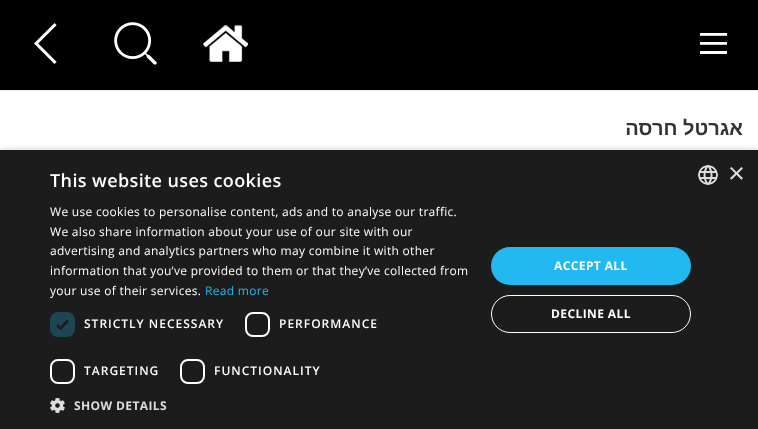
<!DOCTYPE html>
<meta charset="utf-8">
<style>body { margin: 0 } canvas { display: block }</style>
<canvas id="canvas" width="758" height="429"></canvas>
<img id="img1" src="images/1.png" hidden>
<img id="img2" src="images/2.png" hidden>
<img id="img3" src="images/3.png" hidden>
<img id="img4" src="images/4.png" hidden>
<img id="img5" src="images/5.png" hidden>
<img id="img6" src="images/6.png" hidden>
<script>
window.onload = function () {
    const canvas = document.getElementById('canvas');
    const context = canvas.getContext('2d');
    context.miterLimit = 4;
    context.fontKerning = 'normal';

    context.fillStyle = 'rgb(255, 255, 255)';
    context.fillRect(0, 0, 758, 429);
    context.fillStyle = 'rgb(0, 0, 0)';
    context.fillRect(0, 0, 758, 90);
    context.fillStyle = 'rgb(238, 238, 238)';
    context.fillRect(0, 90, 758, 1);
    context.drawImage(document.getElementById('img1'), 34, 23, 23, 41);
    context.drawImage(document.getElementById('img2'), 114, 22, 43, 43);
    context.drawImage(document.getElementById('img3'), 203, 25, 45, 37);
    context.drawImage(document.getElementById('img4'), 700, 33, 27, 21);
    context.fillStyle = 'rgba(0, 0, 0, 0.35)';
    context.filter = 'blur(4px)';
    context.beginPath();
    context.rect(1, 152, 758, 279);
    context.fill();
    context.filter = 'none';
    context.fillStyle = 'rgb(28, 28, 28)';
    context.fillRect(0, 150, 758, 279);
    context.fillStyle = 'rgb(30, 69, 83)';
    context.beginPath();
    context.roundRect(50, 312, 25, 25, 8);
    context.fill();
    context.beginPath();
    context.moveTo(57, 325);
    context.lineTo(60.5, 328.5);
    context.lineTo(68, 320.5);
    context.strokeStyle = 'rgb(28, 28, 28)';
    context.lineWidth = 2.6;
    context.stroke();
    context.beginPath();
    context.roundRect(246, 313, 23, 23, 7);
    context.strokeStyle = 'rgb(255, 255, 255)';
    context.lineWidth = 2;
    context.stroke();
    context.beginPath();
    context.roundRect(51, 360, 23, 23, 7);
    context.stroke();
    context.beginPath();
    context.roundRect(181, 360, 23, 23, 7);
    context.stroke();
    context.drawImage(document.getElementById('img5'), 50, 398, 15, 15);
    context.fillStyle = 'rgb(34, 184, 240)';
    context.beginPath();
    context.roundRect(491, 247, 200, 38, 19);
    context.fill();
    context.beginPath();
    context.roundRect(491.5, 295.5, 199, 37, 18.5);
    context.lineWidth = 1;
    context.stroke();
    context.drawImage(document.getElementById('img6'), 698, 165, 20, 20);
    context.direction = 'rtl';
    context.font = 'bold 20px Liberation Sans';
    context.fillStyle = 'rgb(51, 51, 51)';
    context.fillText('אגרטל חרסה', 743, 135);
    context.letterSpacing = '0.4px';
    context.direction = 'ltr';
    context.font = '600 18px Open Sans';
    context.fillStyle = 'rgb(255, 255, 255)';
    context.fillText('This website uses cookies', 50, 187);
    context.letterSpacing = '0.3px';
    context.font = '12px Open Sans';
    context.fillText('We use cookies to personalise content, ads and to analyse our traffic.', 50, 216);
    context.fillText('We also share information about your use of our site with our', 50, 236);
    context.fillText('advertising and analytics partners who may combine it with other', 50, 255);
    context.fillText('information that you’ve provided to them or that they’ve collected from', 50, 275);
    context.fillText('your use of their services.', 50, 295);
    context.fillStyle = 'rgb(34, 184, 240)';
    context.fillText('Read more', 205, 295);
    context.letterSpacing = '1px';
    context.font = '600 12px Open Sans';
    context.fillStyle = 'rgb(255, 255, 255)';
    context.fillText('STRICTLY NECESSARY', 84, 328);
    context.fillText('PERFORMANCE', 279, 328);
    context.fillText('TARGETING', 84, 375);
    context.fillText('FUNCTIONALITY', 214, 375);
    context.letterSpacing = '0.4px';
    context.font = 'bold 12px Open Sans';
    context.fillStyle = 'rgb(221, 221, 221)';
    context.fillText('SHOW DETAILS', 74, 410);
    context.fillStyle = 'rgb(255, 255, 255)';
    context.fillText('ACCEPT ALL', 554, 270);
    context.fillText('DECLINE ALL', 551, 318);
    context.letterSpacing = '0px';
    context.font = '29px Liberation Sans';
    context.fillStyle = 'rgb(221, 221, 221)';
    context.fillText('×', 728, 183);
};
</script>
